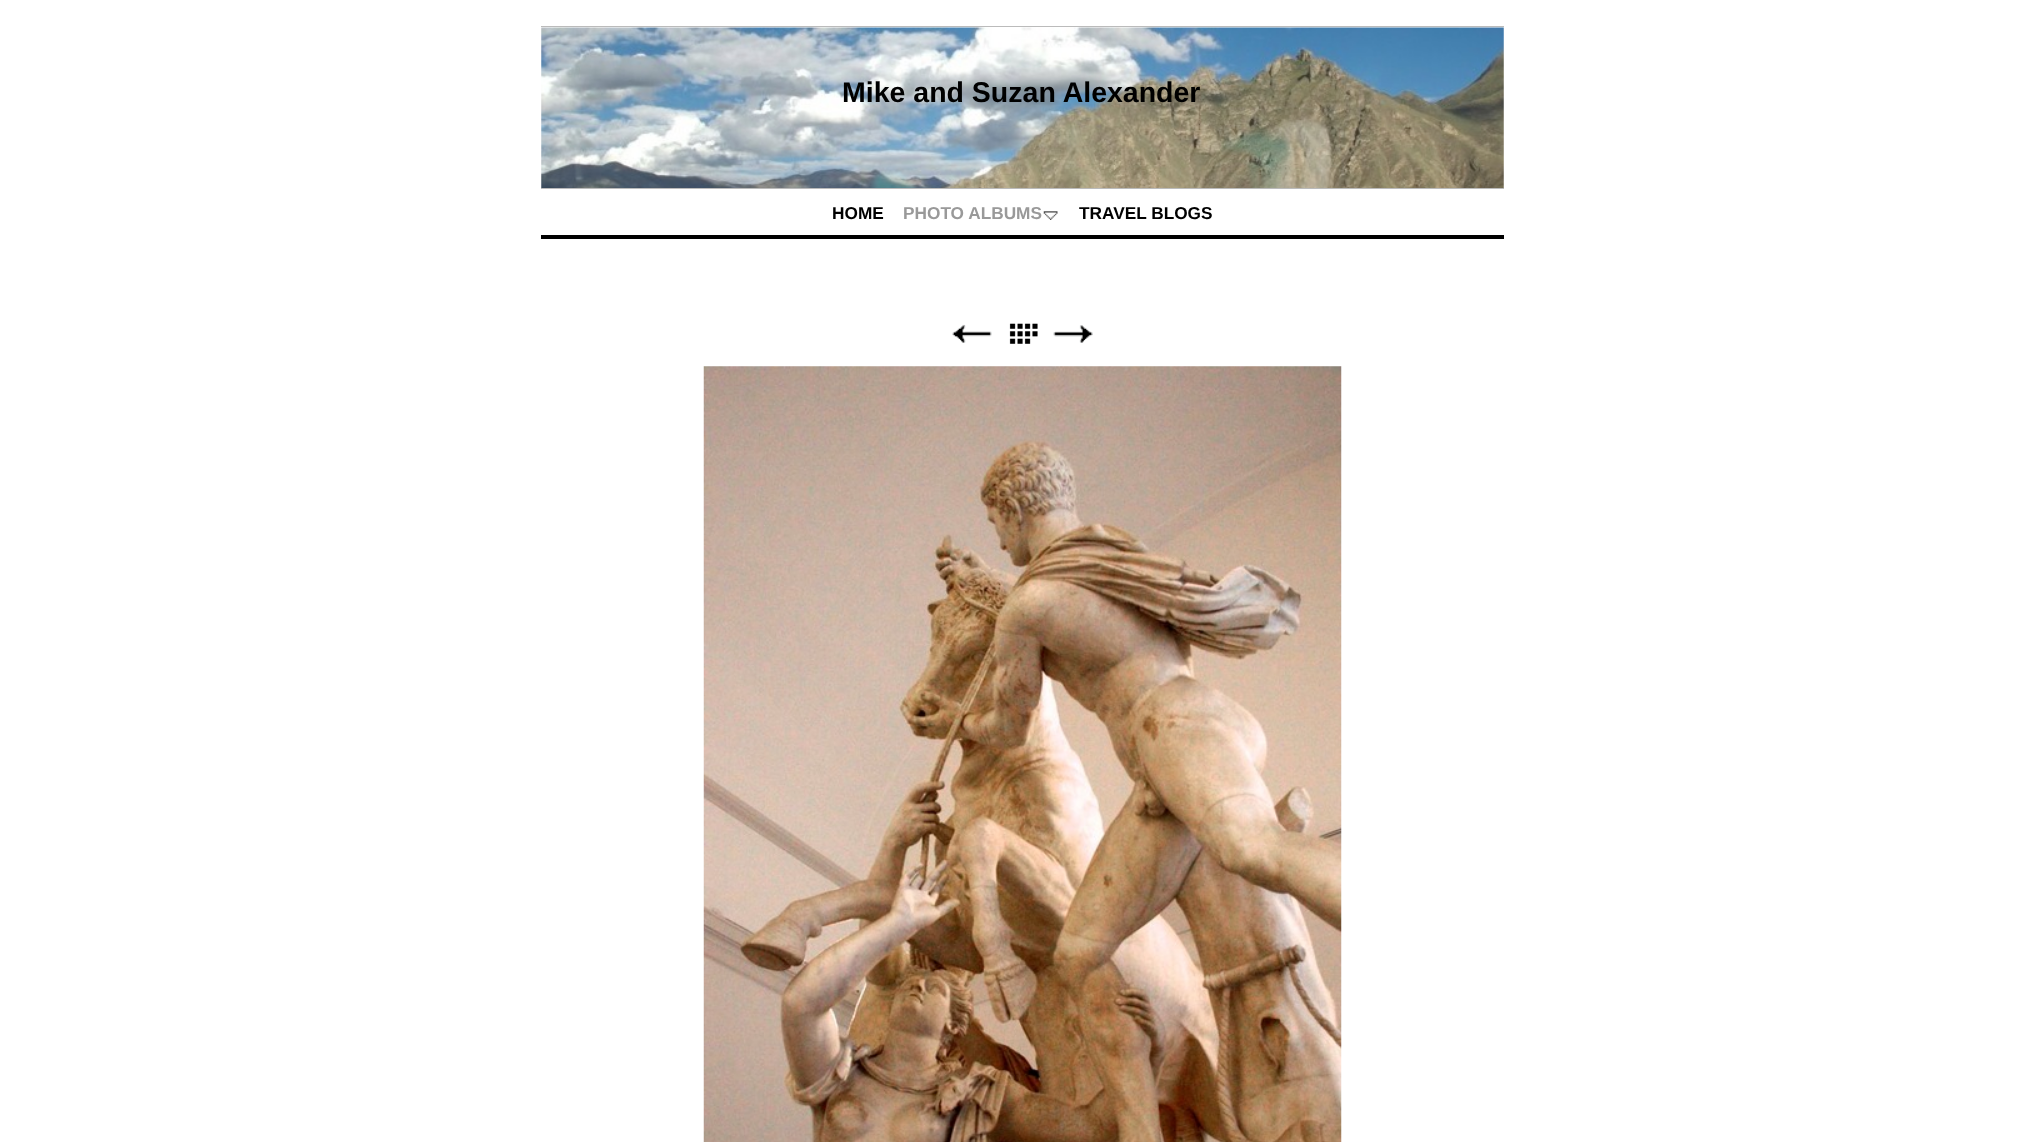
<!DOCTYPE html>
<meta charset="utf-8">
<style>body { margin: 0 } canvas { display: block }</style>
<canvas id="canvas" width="2043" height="1142"></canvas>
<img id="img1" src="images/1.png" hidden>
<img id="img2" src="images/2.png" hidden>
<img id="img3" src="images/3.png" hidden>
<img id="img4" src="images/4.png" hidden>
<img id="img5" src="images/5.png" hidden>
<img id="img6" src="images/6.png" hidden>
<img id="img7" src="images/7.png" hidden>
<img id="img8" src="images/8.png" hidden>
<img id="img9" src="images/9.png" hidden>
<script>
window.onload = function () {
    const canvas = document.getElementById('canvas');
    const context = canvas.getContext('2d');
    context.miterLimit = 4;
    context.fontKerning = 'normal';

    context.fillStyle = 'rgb(255, 255, 255)';
    context.fillRect(0, 0, 2043, 1142);
    context.drawImage(document.getElementById('img1'), 541, 27, 963, 161);
    context.fillStyle = 'rgb(187, 187, 187)';
    context.fillRect(541, 26, 963, 1);
    context.fillRect(541, 188, 963, 1);
    context.fillStyle = 'rgb(0, 0, 0)';
    context.fillRect(541, 235, 963, 4);
    context.drawImage(document.getElementById('img2'), 1043, 211, 15, 9);
    context.drawImage(document.getElementById('img3'), 952, 325, 40, 18);
    context.drawImage(document.getElementById('img4'), 952, 324, 40, 19);
    context.drawImage(document.getElementById('img5'), 1010, 323, 28, 21);
    context.drawImage(document.getElementById('img6'), 1009, 323, 29, 21);
    context.drawImage(document.getElementById('img7'), 1053, 325, 40, 18);
    context.drawImage(document.getElementById('img8'), 1053, 325, 40, 18);
    context.drawImage(document.getElementById('img9'), 703, 366, 639, 776);
    context.font = 'bold 28.5px Liberation Sans';
    context.fillText('Mike and Suzan Alexander', 842, 102);
    context.font = 'bold 17.25px Liberation Sans';
    context.fillText('HOME', 832, 219);
    context.fillStyle = 'rgb(153, 153, 153)';
    context.fillText('PHOTO ALBUMS', 903, 219);
    context.fillStyle = 'rgb(0, 0, 0)';
    context.fillText('TRAVEL BLOGS', 1079, 219);
};
</script>
